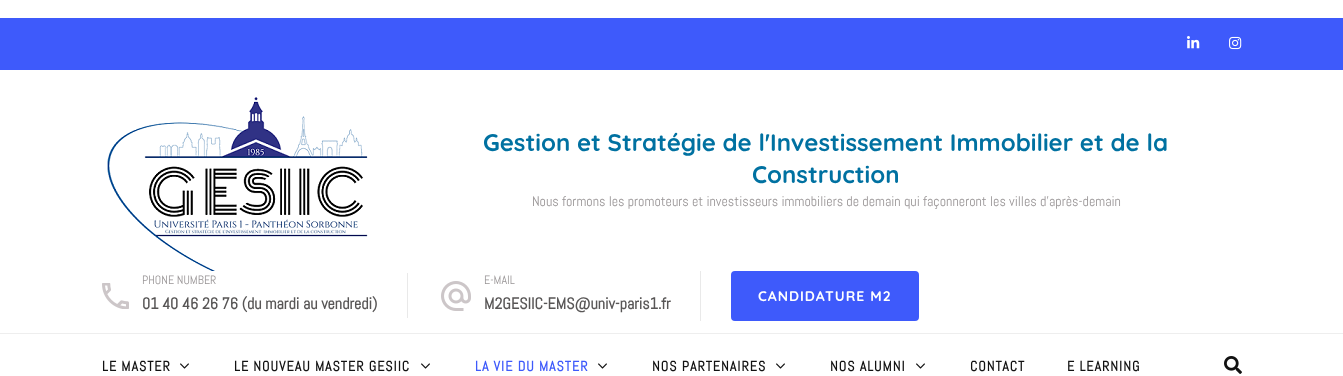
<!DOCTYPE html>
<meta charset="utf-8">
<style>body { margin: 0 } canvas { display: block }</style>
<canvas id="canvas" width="1343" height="376"></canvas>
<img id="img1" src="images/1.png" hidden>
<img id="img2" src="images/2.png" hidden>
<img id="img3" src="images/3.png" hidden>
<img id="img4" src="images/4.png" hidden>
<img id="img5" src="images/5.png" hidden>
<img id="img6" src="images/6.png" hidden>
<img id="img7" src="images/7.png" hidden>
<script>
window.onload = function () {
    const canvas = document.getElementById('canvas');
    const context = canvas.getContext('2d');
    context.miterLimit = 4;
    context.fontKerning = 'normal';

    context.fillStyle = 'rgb(255, 255, 255)';
    context.fillRect(0, 0, 1343, 376);
    context.fillStyle = 'rgb(62, 90, 251)';
    context.fillRect(0, 18, 1343, 52);
    context.drawImage(document.getElementById('img1'), 1187, 36, 13, 13);
    context.drawImage(document.getElementById('img2'), 1229, 36, 13, 14);
    context.drawImage(document.getElementById('img3'), 107, 97, 261, 174);
    context.drawImage(document.getElementById('img4'), 102, 283, 27, 26);
    context.fillStyle = 'rgb(233, 233, 233)';
    context.fillRect(407, 273, 1, 45);
    context.drawImage(document.getElementById('img5'), 441, 281, 30, 30);
    context.fillRect(700, 271, 1, 50);
    context.fillStyle = 'rgb(62, 90, 251)';
    context.beginPath();
    context.roundRect(732, 272, 186, 48, 3);
    context.fill();
    context.strokeStyle = 'rgb(62, 90, 251)';
    context.lineWidth = 2;
    context.stroke();
    context.fillStyle = 'rgb(238, 238, 238)';
    context.fillRect(0, 333, 1343, 1);
    context.drawImage(document.getElementById('img6'), 180, 363, 9, 6);
    context.drawImage(document.getElementById('img6'), 421, 363, 9, 6);
    context.drawImage(document.getElementById('img6'), 598, 363, 9, 6);
    context.drawImage(document.getElementById('img6'), 776, 363, 9, 6);
    context.drawImage(document.getElementById('img6'), 916, 363, 9, 6);
    context.drawImage(document.getElementById('img7'), 1224, 356, 18, 18);
    context.font = 'bold 24px Quicksand';
    context.fillStyle = 'rgb(0, 113, 161)';
    context.fillText('Gestion et Stratégie de l\'Investissement Immobilier et de la', 483, 151);
    context.fillText('Construction', 752, 183);
    context.font = '14px Abel';
    context.fillStyle = 'rgb(153, 149, 150)';
    context.fillText('Nous formons les promoteurs et investisseurs immobiliers de demain qui façonneront les villes d\'après-demain', 532, 206);
    context.font = '12px Abel';
    context.fillText('PHONE NUMBER', 142, 284);
    context.font = 'bold 16px Abel';
    context.fillStyle = 'rgb(88, 86, 86)';
    context.fillText('01 40 46 26 76 (du mardi au vendredi)', 142, 309);
    context.font = '12px Abel';
    context.fillStyle = 'rgb(153, 149, 150)';
    context.fillText('E-MAIL', 484, 284);
    context.font = 'bold 16px Abel';
    context.fillStyle = 'rgb(88, 86, 86)';
    context.fillText('M2GESIIC-EMS@univ-paris1.fr', 484, 309);
    context.letterSpacing = '1px';
    context.font = 'bold 14px Quicksand';
    context.fillStyle = 'rgb(255, 255, 255)';
    context.fillText('CANDIDATURE M2', 758, 301);
    context.font = 'bold 14px Abel';
    context.fillStyle = 'rgb(18, 18, 18)';
    context.fillText('LE MASTER', 102, 371);
    context.fillText('LE NOUVEAU MASTER GESIIC', 234, 371);
    context.fillStyle = 'rgb(62, 90, 251)';
    context.fillText('LA VIE DU MASTER', 475, 371);
    context.fillStyle = 'rgb(18, 18, 18)';
    context.fillText('NOS PARTENAIRES', 652, 371);
    context.fillText('NOS ALUMNI', 830, 371);
    context.fillText('CONTACT', 970, 371);
    context.fillText('E LEARNING', 1067, 371);
};
</script>
